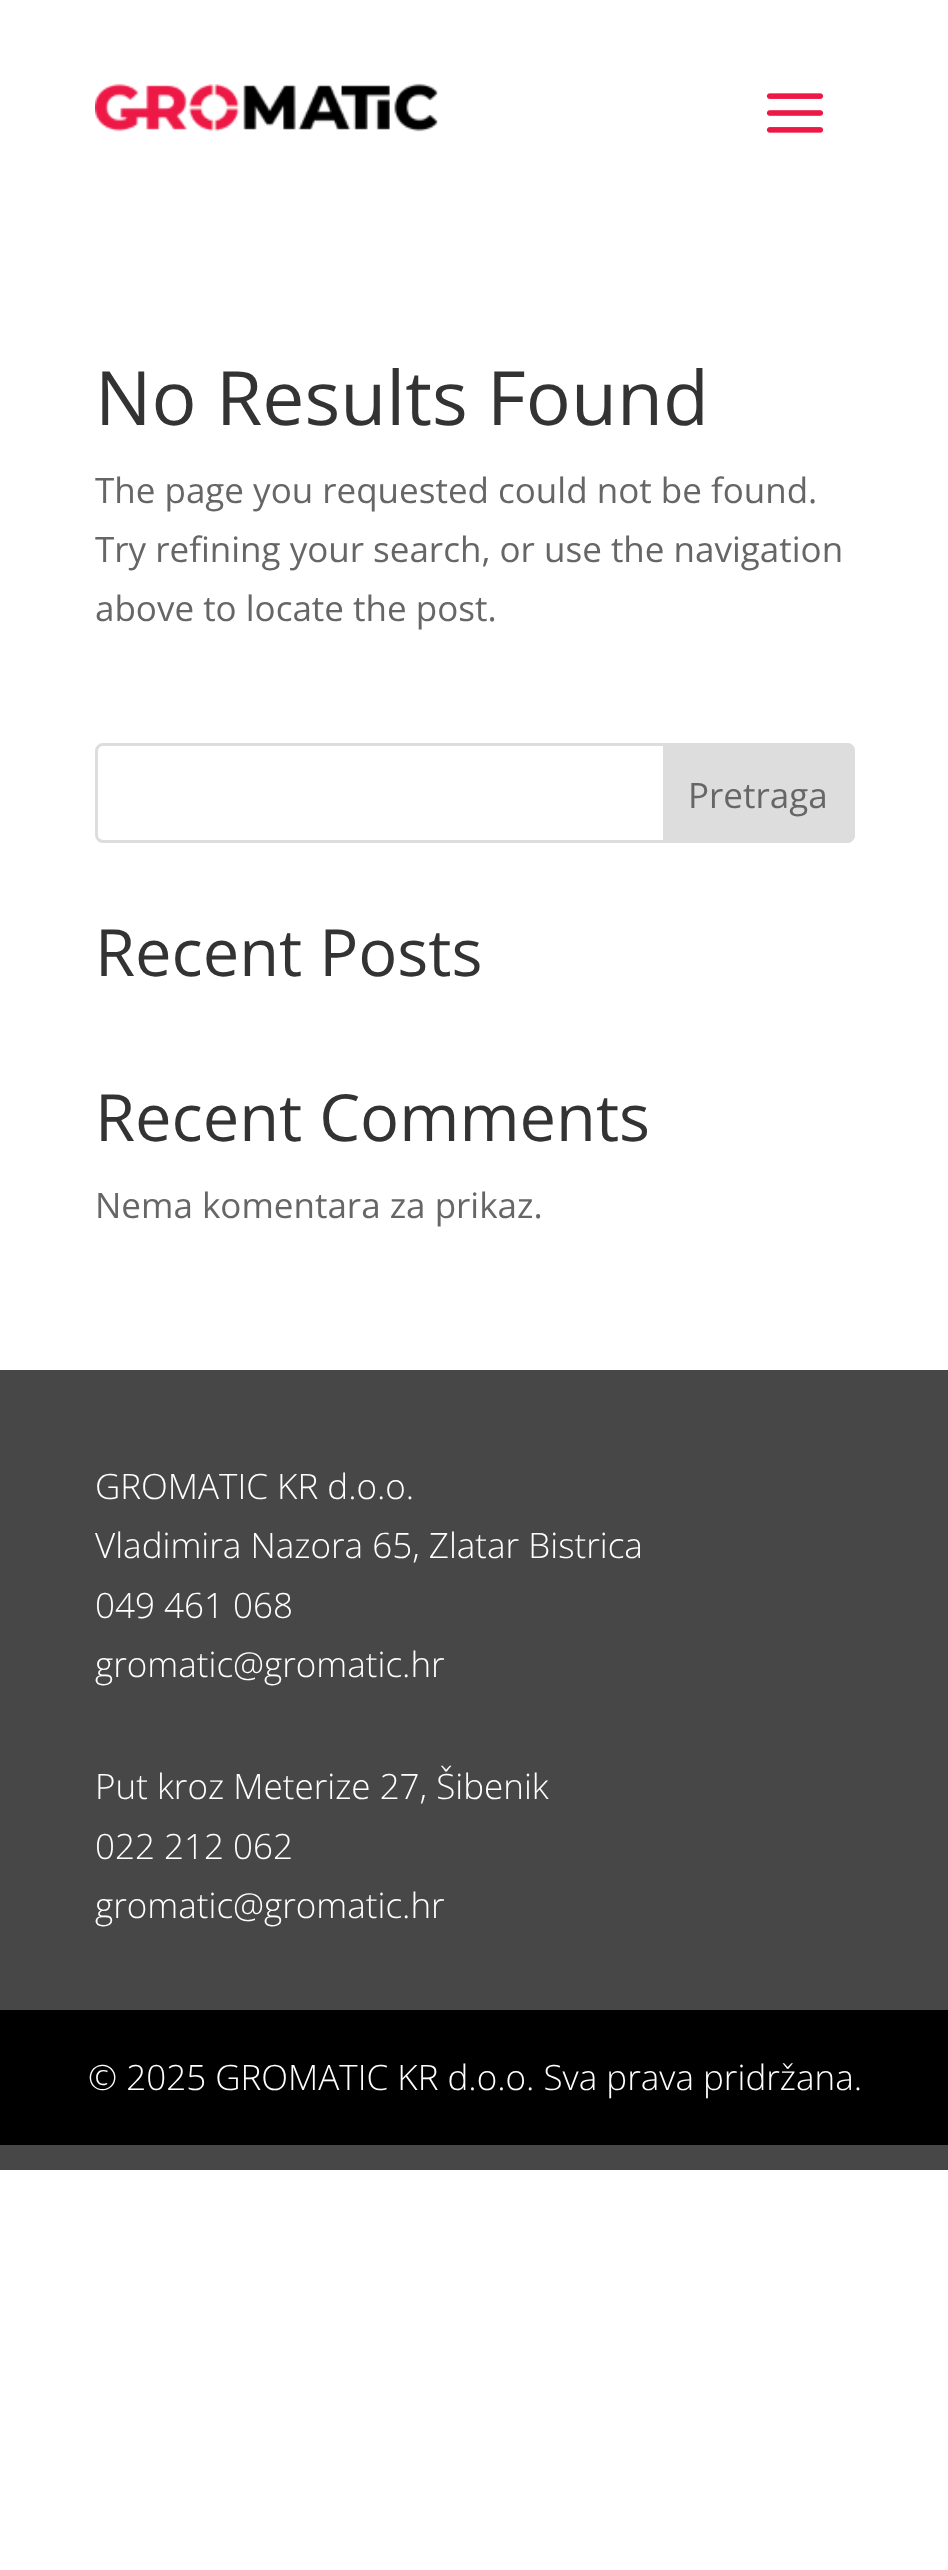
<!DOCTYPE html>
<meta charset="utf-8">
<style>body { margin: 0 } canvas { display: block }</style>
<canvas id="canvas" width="948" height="2570"></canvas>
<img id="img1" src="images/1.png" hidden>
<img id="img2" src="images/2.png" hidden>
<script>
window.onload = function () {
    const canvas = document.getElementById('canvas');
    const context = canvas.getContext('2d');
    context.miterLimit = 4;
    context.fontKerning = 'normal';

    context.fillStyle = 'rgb(255, 255, 255)';
    context.fillRect(0, 0, 948, 2570);
    context.drawImage(document.getElementById('img1'), 95, 83, 343, 49);
    context.drawImage(document.getElementById('img2'), 766, 93, 58, 40);
    context.beginPath();
    context.roundRect(96.5, 744.5, 757, 97, 6.5);
    context.strokeStyle = 'rgb(221, 221, 221)';
    context.lineWidth = 3;
    context.stroke();
    context.fillStyle = 'rgb(221, 221, 221)';
    context.beginPath();
    context.roundRect(664.5, 744.5, 189, 97, [0, 6.5, 6.5, 0]);
    context.fill();
    context.stroke();
    context.fillStyle = 'rgb(71, 71, 71)';
    context.fillRect(0, 1370, 948, 800);
    context.fillStyle = 'rgb(0, 0, 0)';
    context.fillRect(0, 2010, 948, 135);
    context.font = '75px Open Sans';
    context.fillStyle = 'rgb(51, 51, 51)';
    context.fillText('No Results Found', 95, 425);
    context.font = '35px Open Sans';
    context.fillStyle = 'rgb(102, 102, 102)';
    context.fillText('The page you requested could not be found.', 95, 503);
    context.fillText('Try refining your search, or use the navigation', 95, 562);
    context.fillText('above to locate the post.', 95, 621);
    context.fillText('Pretraga', 688, 808);
    context.font = '65px Open Sans';
    context.fillStyle = 'rgb(51, 51, 51)';
    context.fillText('Recent Posts', 95, 976);
    context.fillText('Recent Comments', 95, 1141);
    context.font = '35px Open Sans';
    context.fillStyle = 'rgb(102, 102, 102)';
    context.fillText('Nema komentara za prikaz.', 95, 1218);
    context.font = '300 35px Open Sans';
    context.fillStyle = 'rgb(255, 255, 255)';
    context.fillText('GROMATIC KR d.o.o.', 95, 1499);
    context.fillText('Vladimira Nazora 65, Zlatar Bistrica', 95, 1558);
    context.fillText('049 461 068', 95, 1618);
    context.fillText('gromatic@gromatic.hr', 95, 1677);
    context.fillText('Put kroz Meterize 27, Šibenik', 95, 1799);
    context.fillText('022 212 062', 95, 1859);
    context.fillText('gromatic@gromatic.hr', 95, 1918);
    context.fillText('© 2025 GROMATIC KR d.o.o. Sva prava pridržana.', 88, 2090);
};
</script>
